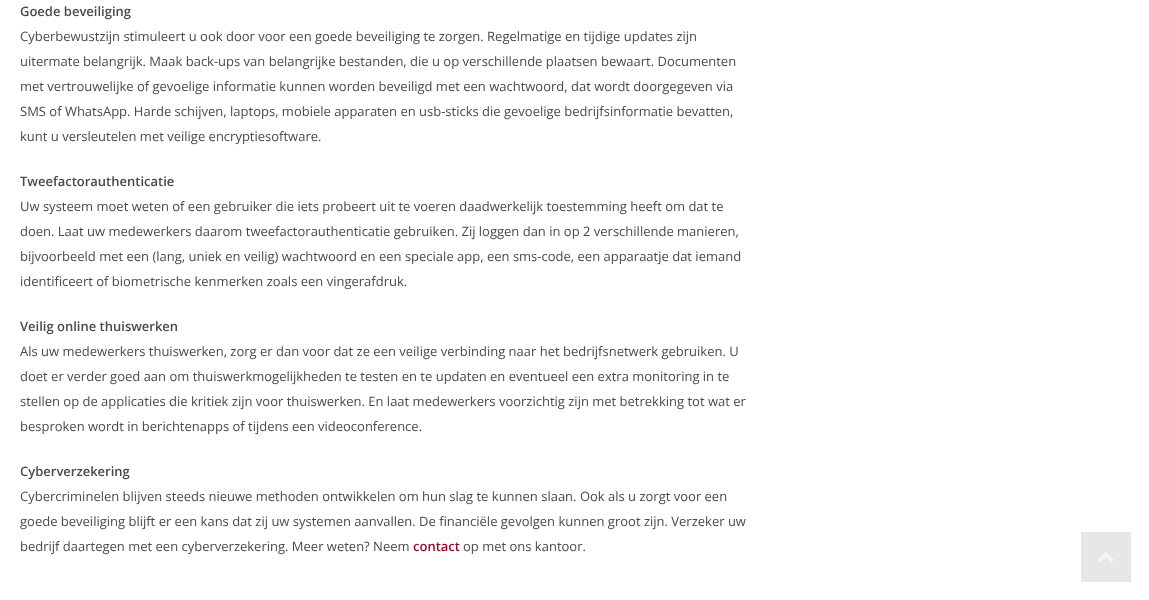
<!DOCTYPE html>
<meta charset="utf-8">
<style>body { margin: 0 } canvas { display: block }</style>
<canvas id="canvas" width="1149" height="600"></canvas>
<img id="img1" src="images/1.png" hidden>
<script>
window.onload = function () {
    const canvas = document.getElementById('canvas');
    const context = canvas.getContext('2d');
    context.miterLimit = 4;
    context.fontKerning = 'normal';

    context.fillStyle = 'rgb(255, 255, 255)';
    context.fillRect(0, 0, 1149, 600);
    context.fillStyle = 'rgb(231, 231, 231)';
    context.fillRect(1081, 532, 50, 50);
    context.drawImage(document.getElementById('img1'), 1098, 552, 16, 10);
    context.font = '600 13px Open Sans';
    context.fillStyle = 'rgb(74, 74, 73)';
    context.fillText('Goede beveiliging', 20, 16);
    context.font = '13px Open Sans';
    context.fillText('Cyberbewustzijn stimuleert u ook door voor een goede beveiliging te zorgen. Regelmatige en tijdige updates zijn', 20, 41);
    context.fillText('uitermate belangrijk. Maak back-ups van belangrijke bestanden, die u op verschillende plaatsen bewaart. Documenten', 20, 66);
    context.fillText('met vertrouwelijke of gevoelige informatie kunnen worden beveiligd met een wachtwoord, dat wordt doorgegeven via', 20, 91);
    context.fillText('SMS of WhatsApp. Harde schijven, laptops, mobiele apparaten en usb-sticks die gevoelige bedrijfsinformatie bevatten,', 20, 116);
    context.fillText('kunt u versleutelen met veilige encryptiesoftware.', 20, 141);
    context.font = '600 13px Open Sans';
    context.fillText('Tweefactorauthenticatie', 20, 186);
    context.font = '13px Open Sans';
    context.fillText('Uw systeem moet weten of een gebruiker die iets probeert uit te voeren daadwerkelijk toestemming heeft om dat te', 20, 211);
    context.fillText('doen. Laat uw medewerkers daarom tweefactorauthenticatie gebruiken. Zij loggen dan in op 2 verschillende manieren,', 20, 236);
    context.fillText('bijvoorbeeld met een (lang, uniek en veilig) wachtwoord en een speciale app, een sms-code, een apparaatje dat iemand', 20, 261);
    context.fillText('identificeert of biometrische kenmerken zoals een vingerafdruk.', 20, 286);
    context.font = '600 13px Open Sans';
    context.fillText('Veilig online thuiswerken', 20, 331);
    context.font = '13px Open Sans';
    context.fillText('Als uw medewerkers thuiswerken, zorg er dan voor dat ze een veilige verbinding naar het bedrijfsnetwerk gebruiken. U', 20, 356);
    context.fillText('doet er verder goed aan om thuiswerkmogelijkheden te testen en te updaten en eventueel een extra monitoring in te', 20, 381);
    context.fillText('stellen op de applicaties die kritiek zijn voor thuiswerken. En laat medewerkers voorzichtig zijn met betrekking tot wat er', 20, 406);
    context.fillText('besproken wordt in berichtenapps of tijdens een videoconference.', 20, 431);
    context.font = '600 13px Open Sans';
    context.fillText('Cyberverzekering', 20, 476);
    context.font = '13px Open Sans';
    context.fillText('Cybercriminelen blijven steeds nieuwe methoden ontwikkelen om hun slag te kunnen slaan. Ook als u zorgt voor een', 20, 501);
    context.fillText('goede beveiliging blijft er een kans dat zij uw systemen aanvallen. De financiële gevolgen kunnen groot zijn. Verzeker uw', 20, 526);
    context.fillText('bedrijf daartegen met een cyberverzekering. Meer weten? Neem', 20, 551);
    context.font = '600 13px Open Sans';
    context.fillStyle = 'rgb(153, 10, 44)';
    context.fillText('contact', 413, 551);
    context.font = '13px Open Sans';
    context.fillStyle = 'rgb(74, 74, 73)';
    context.fillText('op met ons kantoor.', 463, 551);
};
</script>
